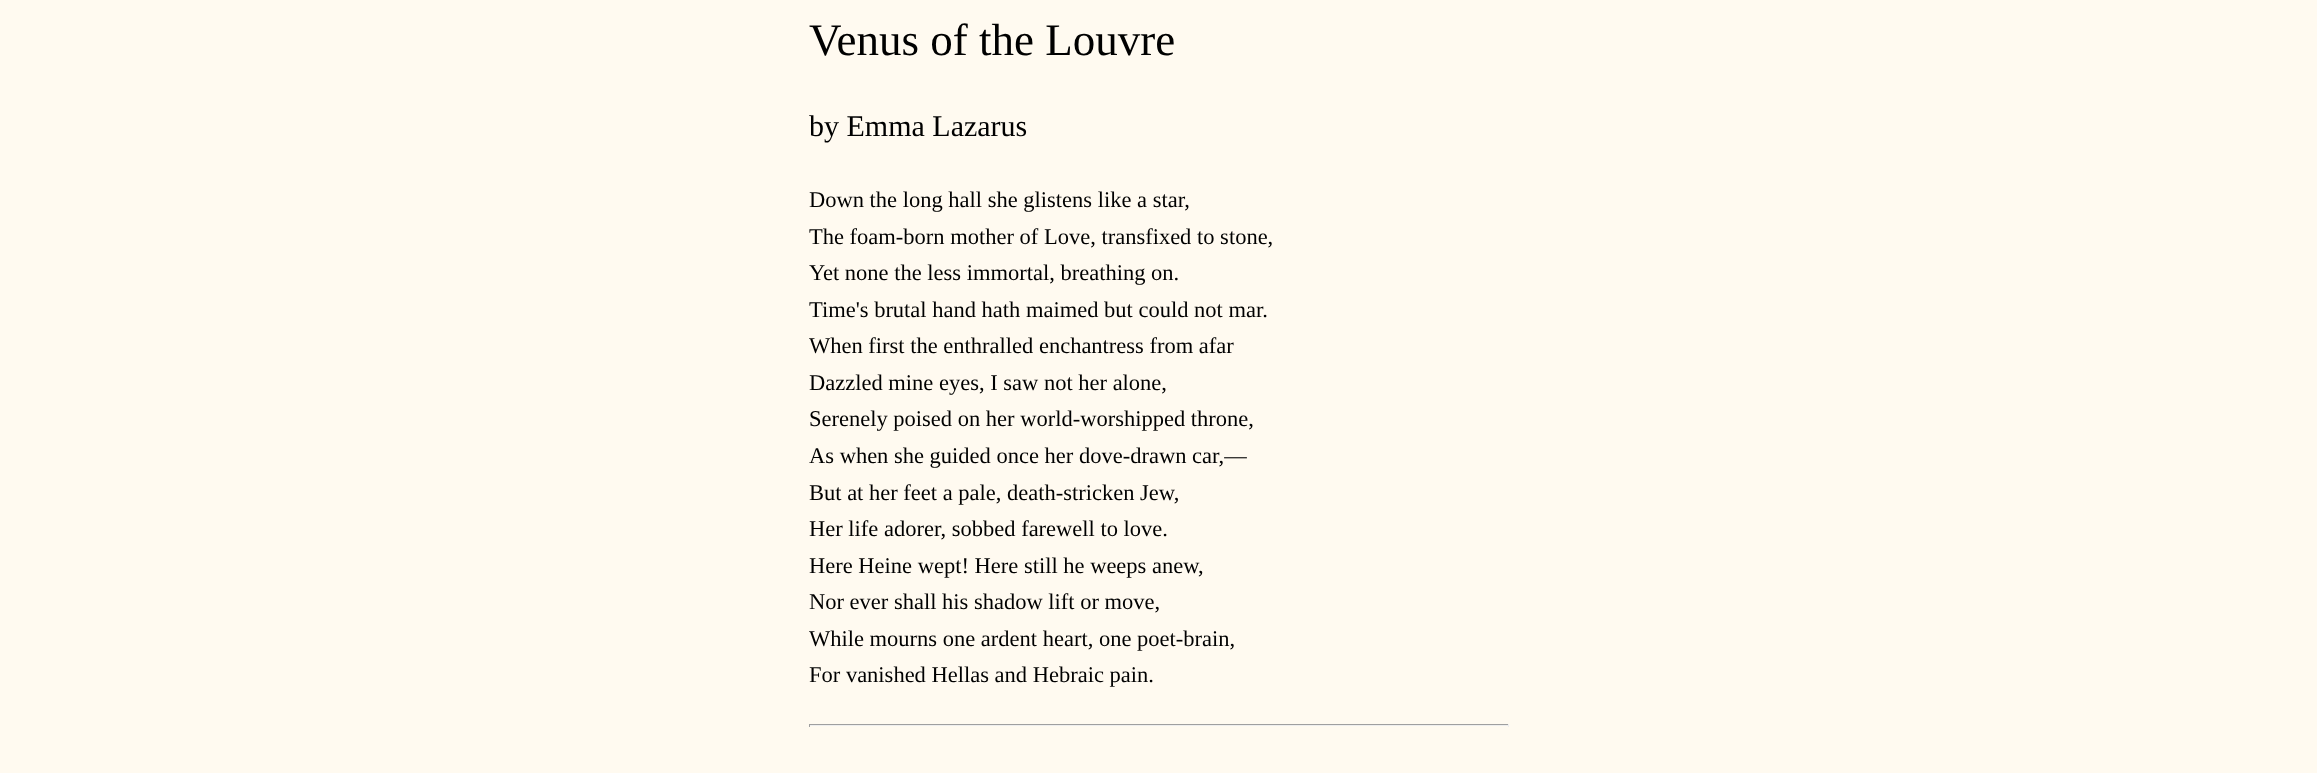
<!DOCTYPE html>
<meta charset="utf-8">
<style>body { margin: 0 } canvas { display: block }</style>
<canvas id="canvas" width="2317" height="773"></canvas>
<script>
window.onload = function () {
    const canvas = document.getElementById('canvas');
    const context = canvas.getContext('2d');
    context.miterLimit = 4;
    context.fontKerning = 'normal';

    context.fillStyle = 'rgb(255, 250, 240)';
    context.fillRect(0, 0, 2317, 773);
    context.fillStyle = 'rgb(159, 159, 159)';
    context.fillRect(809, 724, 700, 1);
    context.fillStyle = 'rgb(238, 238, 238)';
    context.fillRect(1508, 724, 1, 3);
    context.fillRect(809, 725, 700, 1);
    context.fillStyle = 'rgb(159, 159, 159)';
    context.fillRect(809, 724, 1, 3);
    context.font = '45px Liberation Serif';
    context.fillStyle = 'rgb(0, 0, 0)';
    context.fillText('Venus of the Louvre', 809, 55);
    context.font = '30px Liberation Serif';
    context.fillText('by Emma Lazarus', 809, 136);
    context.font = '22.5px Liberation Serif';
    context.fillText('Down the long hall she glistens like a star,', 809, 207);
    context.fillText('The foam-born mother of Love, transfixed to stone,', 809, 244);
    context.fillText('Yet none the less immortal, breathing on.', 809, 280);
    context.fillText('Time\'s brutal hand hath maimed but could not mar.', 809, 317);
    context.fillText('When first the enthralled enchantress from afar', 809, 353);
    context.fillText('Dazzled mine eyes, I saw not her alone,', 809, 390);
    context.fillText('Serenely poised on her world-worshipped throne,', 809, 426);
    context.fillText('As when she guided once her dove-drawn car,—', 809, 463);
    context.fillText('But at her feet a pale, death-stricken Jew,', 809, 500);
    context.fillText('Her life adorer, sobbed farewell to love.', 809, 536);
    context.fillText('Here Heine wept! Here still he weeps anew,', 809, 573);
    context.fillText('Nor ever shall his shadow lift or move,', 809, 609);
    context.fillText('While mourns one ardent heart, one poet-brain,', 809, 646);
    context.fillText('For vanished Hellas and Hebraic pain.', 809, 682);
};
</script>
